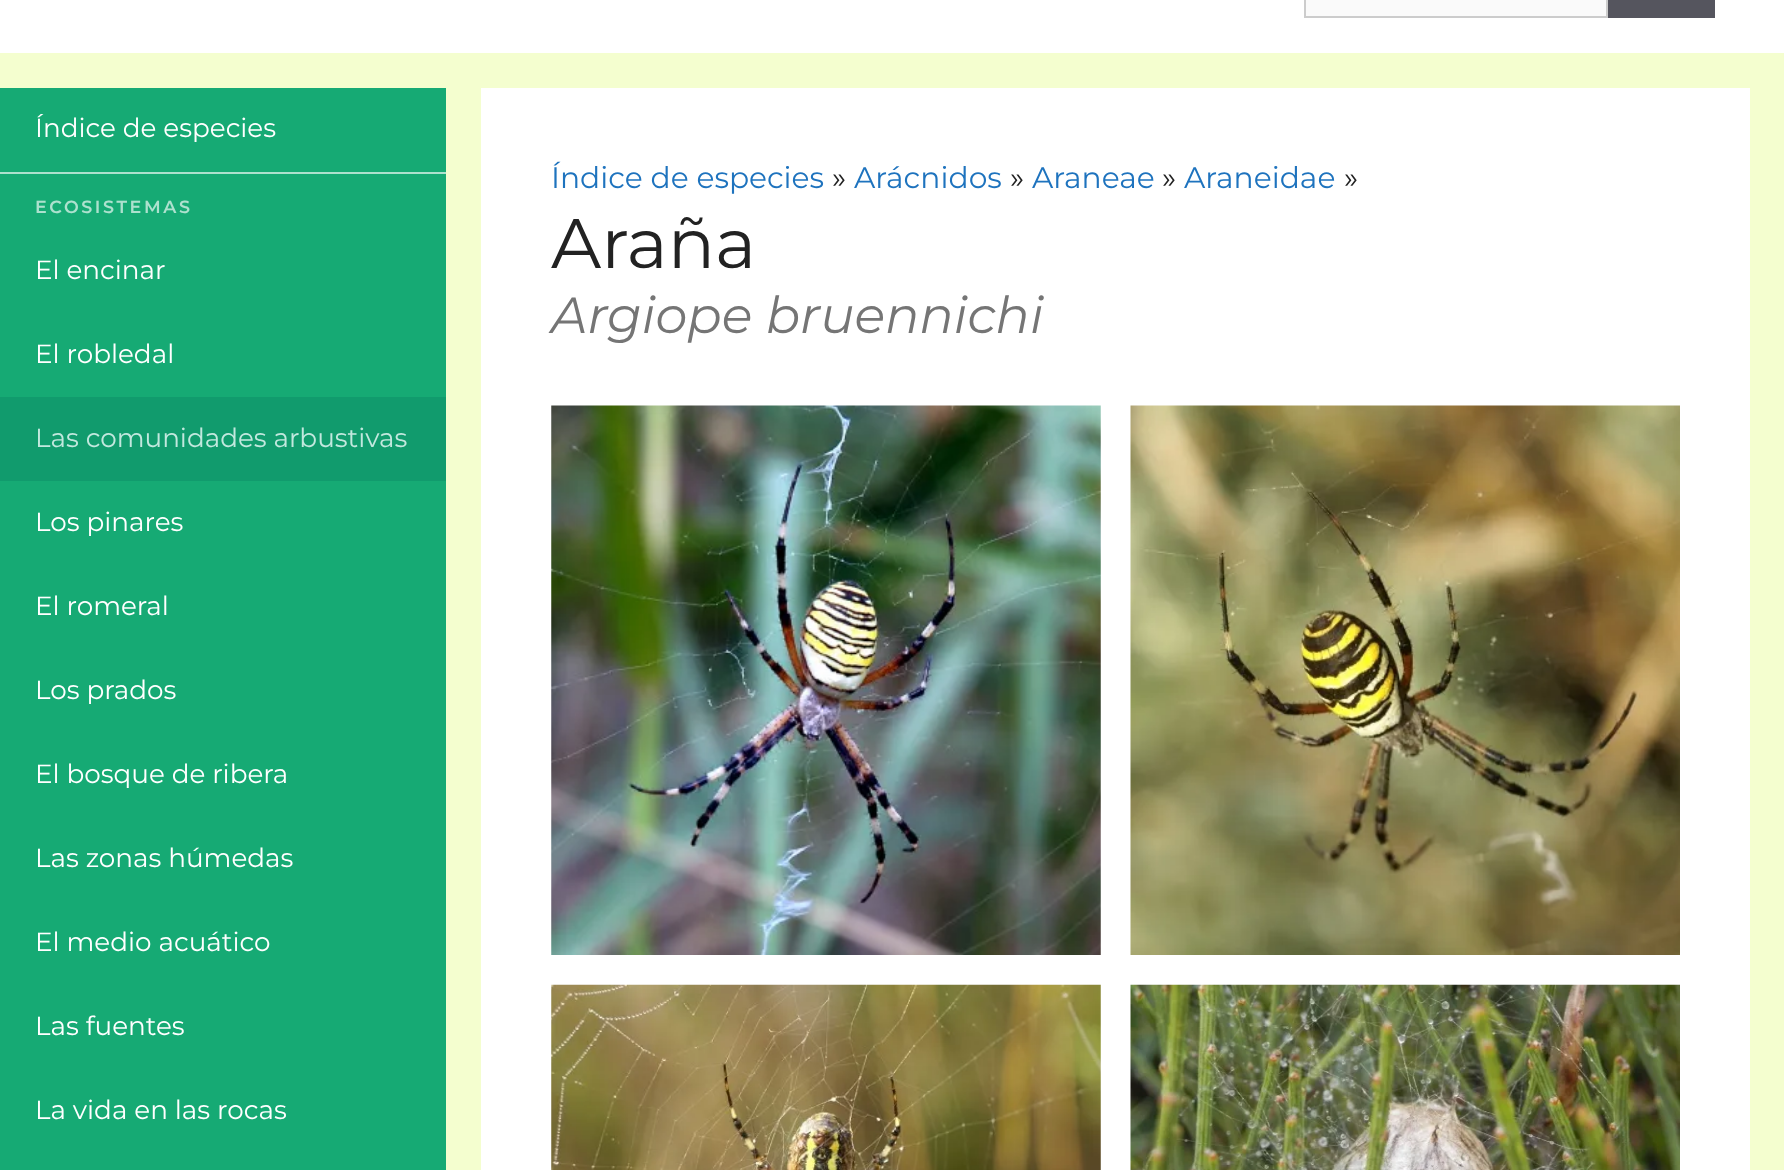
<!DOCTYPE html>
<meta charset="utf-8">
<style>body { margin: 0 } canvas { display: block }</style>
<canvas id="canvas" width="1784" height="1170"></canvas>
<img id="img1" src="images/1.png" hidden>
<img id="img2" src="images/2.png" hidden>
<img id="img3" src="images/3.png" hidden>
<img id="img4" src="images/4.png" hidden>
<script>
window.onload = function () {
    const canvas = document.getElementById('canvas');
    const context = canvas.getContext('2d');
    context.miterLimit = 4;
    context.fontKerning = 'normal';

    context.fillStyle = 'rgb(244, 254, 207)';
    context.fillRect(0, 0, 1784, 1170);
    context.fillStyle = 'rgb(255, 255, 255)';
    context.fillRect(0, 0, 1784, 53);
    context.fillStyle = 'rgb(250, 250, 250)';
    context.beginPath();
    context.rect(1305, -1, 302, 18);
    context.fill();
    context.strokeStyle = 'rgb(204, 204, 204)';
    context.lineWidth = 2;
    context.stroke();
    context.fillStyle = 'rgb(85, 85, 94)';
    context.fillRect(1608, 0, 107, 18);
    context.fillStyle = 'rgb(22, 170, 116)';
    context.fillRect(0, 88, 446, 1082);
    context.fillStyle = 'rgb(173, 225, 206)';
    context.fillRect(0, 172, 446, 2);
    context.fillStyle = 'rgb(17, 155, 109)';
    context.fillRect(0, 397, 446, 84);
    context.fillStyle = 'rgb(255, 255, 255)';
    context.fillRect(481, 88, 1269, 1082);
    context.drawImage(document.getElementById('img1'), 551, 405, 550, 550);
    context.drawImage(document.getElementById('img2'), 1130, 405, 550, 550);
    context.drawImage(document.getElementById('img3'), 551, 984, 550, 186);
    context.drawImage(document.getElementById('img4'), 1130, 984, 550, 186);
    context.font = '26.25px Montserrat';
    context.fillText('Índice de especies', 35, 137);
    context.letterSpacing = '2.6px';
    context.font = '600 17.5px Montserrat';
    context.fillStyle = 'rgb(173, 225, 206)';
    context.fillText('ECOSISTEMAS', 35, 213);
    context.letterSpacing = '0px';
    context.font = '26.25px Montserrat';
    context.fillStyle = 'rgb(255, 255, 255)';
    context.fillText('El encinar', 35, 279);
    context.fillText('El robledal', 35, 363);
    context.fillStyle = 'rgb(194, 232, 222)';
    context.fillText('Las comunidades arbustivas', 35, 447);
    context.fillStyle = 'rgb(255, 255, 255)';
    context.fillText('Los pinares', 35, 531);
    context.fillText('El romeral', 35, 615);
    context.fillText('Los prados', 35, 699);
    context.fillText('El bosque de ribera', 35, 783);
    context.fillText('Las zonas húmedas', 35, 867);
    context.fillText('El medio acuático', 35, 951);
    context.fillText('Las fuentes', 35, 1035);
    context.fillText('La vida en las rocas', 35, 1119);
    context.font = '29.75px Montserrat';
    context.fillStyle = 'rgb(30, 115, 190)';
    context.fillText('Índice de especies', 551, 188);
    context.fillStyle = 'rgb(34, 34, 34)';
    context.fillText('»', 832, 188);
    context.fillStyle = 'rgb(30, 115, 190)';
    context.fillText('Arácnidos', 854, 188);
    context.fillStyle = 'rgb(34, 34, 34)';
    context.fillText('»', 1010, 188);
    context.fillStyle = 'rgb(30, 115, 190)';
    context.fillText('Araneae', 1032, 188);
    context.fillStyle = 'rgb(34, 34, 34)';
    context.fillText('»', 1162, 188);
    context.fillStyle = 'rgb(30, 115, 190)';
    context.fillText('Araneidae', 1184, 188);
    context.fillStyle = 'rgb(34, 34, 34)';
    context.fillText('»', 1344, 188);
    context.font = '70px Montserrat';
    context.fillText('Araña', 551, 268);
    context.font = 'italic 50.75px Montserrat';
    context.fillStyle = 'rgb(117, 117, 117)';
    context.fillText('Argiope bruennichi', 551, 333);
};
</script>
